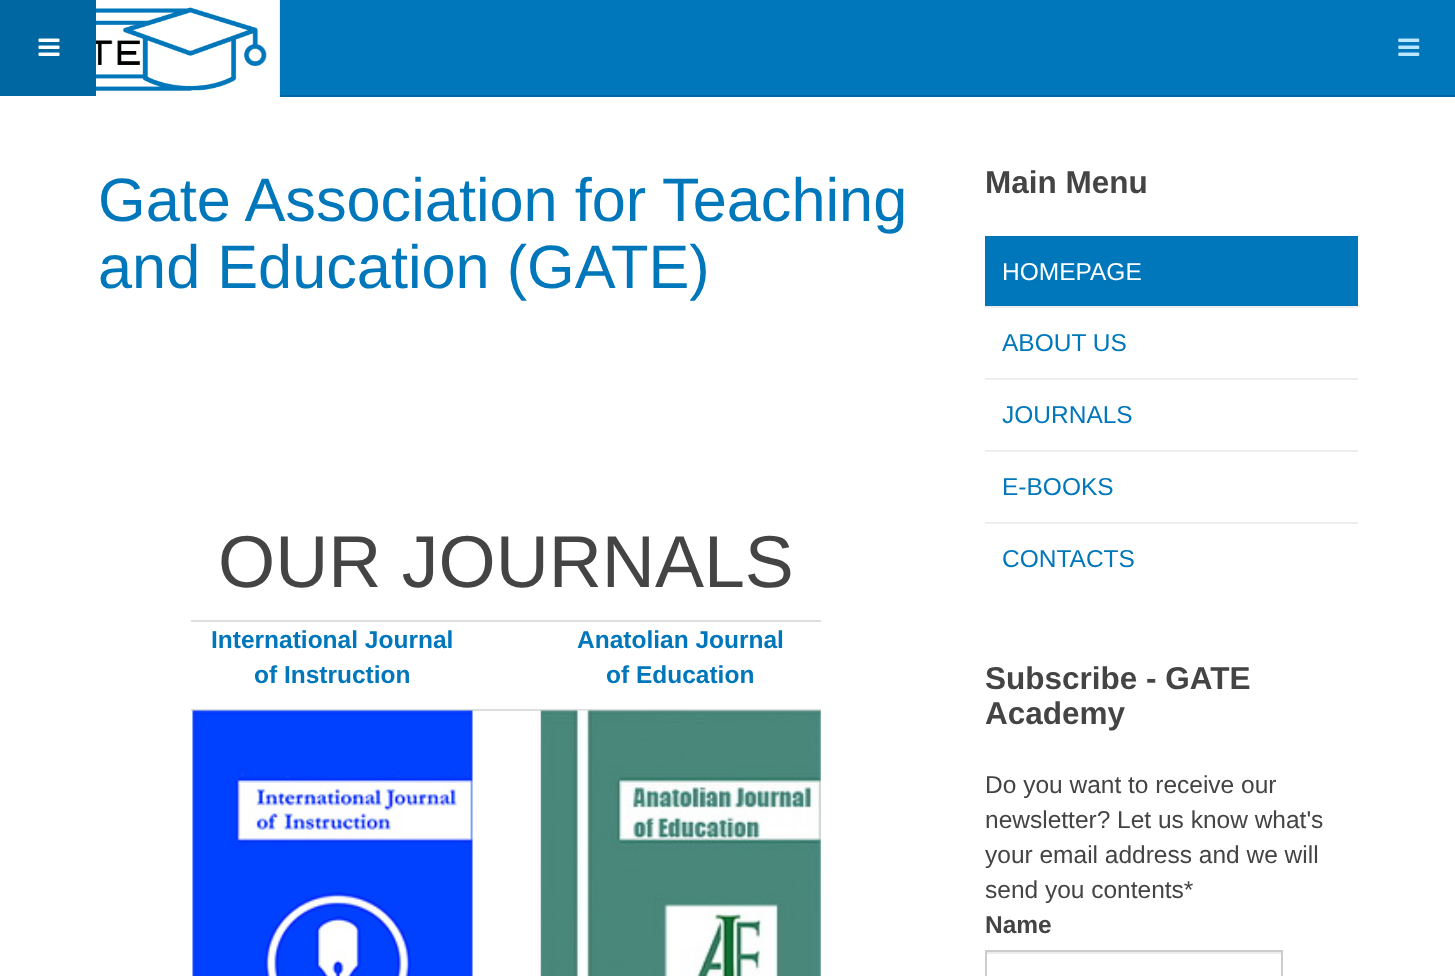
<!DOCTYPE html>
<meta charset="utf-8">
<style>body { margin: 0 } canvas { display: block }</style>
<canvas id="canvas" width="1455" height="976"></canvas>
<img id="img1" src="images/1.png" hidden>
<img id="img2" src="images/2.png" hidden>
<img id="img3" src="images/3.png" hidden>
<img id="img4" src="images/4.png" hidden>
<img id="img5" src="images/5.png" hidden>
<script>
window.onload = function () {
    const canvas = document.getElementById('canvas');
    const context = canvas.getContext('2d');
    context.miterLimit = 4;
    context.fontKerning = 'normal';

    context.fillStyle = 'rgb(255, 255, 255)';
    context.fillRect(0, 0, 1455, 976);
    context.fillStyle = 'rgb(0, 119, 187)';
    context.fillRect(279, 0, 1176, 95);
    context.fillStyle = 'rgb(0, 103, 162)';
    context.fillRect(279, 95, 1176, 2);
    context.drawImage(document.getElementById('img1'), 0, 0, 280, 97);
    context.drawImage(document.getElementById('img2'), 1398, 38, 22, 18);
    context.fillRect(0, 0, 96, 96);
    context.drawImage(document.getElementById('img3'), 38, 38, 22, 18);
    context.fillStyle = 'rgb(221, 221, 221)';
    context.fillRect(191, 620, 630, 2);
    context.fillRect(191, 709, 630, 2);
    context.drawImage(document.getElementById('img4'), 540, 710, 281, 266);
    context.drawImage(document.getElementById('img5'), 192, 710, 281, 266);
    context.fillStyle = 'rgb(0, 119, 187)';
    context.fillRect(985, 236, 373, 70);
    context.fillStyle = 'rgb(238, 238, 238)';
    context.fillRect(985, 306, 373, 2);
    context.fillRect(985, 378, 373, 2);
    context.fillRect(985, 450, 373, 2);
    context.fillRect(985, 522, 373, 2);
    context.fillStyle = 'rgb(236, 236, 236)';
    context.fillRect(987, 952, 294, 2);
    context.strokeStyle = 'rgb(204, 204, 204)';
    context.lineWidth = 2;
    context.strokeRect(986, 951, 296, 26);
    context.font = '61.25px Liberation Sans';
    context.fillStyle = 'rgb(0, 119, 187)';
    context.fillText('Gate Association for Teaching', 98, 221);
    context.fillText('and Education (GATE)', 98, 288);
    context.font = '73.5px Liberation Sans';
    context.fillStyle = 'rgb(68, 68, 68)';
    context.fillText('OUR JOURNALS', 218, 587);
    context.font = 'bold 24.5px Liberation Sans';
    context.fillStyle = 'rgb(0, 119, 187)';
    context.fillText('International Journal', 211, 648);
    context.fillText('of Instruction', 254, 683);
    context.fillText('Anatolian Journal', 577, 648);
    context.fillText('of Education', 606, 683);
    context.font = 'bold 31.5px Liberation Sans';
    context.fillStyle = 'rgb(68, 68, 68)';
    context.fillText('Main Menu', 985, 193);
    context.font = '24.5px Liberation Sans';
    context.fillStyle = 'rgb(255, 255, 255)';
    context.fillText('HOMEPAGE', 1002, 280);
    context.fillStyle = 'rgb(0, 119, 187)';
    context.fillText('ABOUT US', 1002, 351);
    context.fillText('JOURNALS', 1002, 423);
    context.fillText('E-BOOKS', 1002, 495);
    context.fillText('CONTACTS', 1002, 567);
    context.font = 'bold 31.5px Liberation Sans';
    context.fillStyle = 'rgb(68, 68, 68)';
    context.fillText('Subscribe - GATE', 985, 689);
    context.fillText('Academy', 985, 724);
    context.font = '24.5px Liberation Sans';
    context.fillText('Do you want to receive our', 985, 793);
    context.fillText('newsletter? Let us know what\'s', 985, 828);
    context.fillText('your email address and we will', 985, 863);
    context.fillText('send you contents*', 985, 898);
    context.font = 'bold 24.5px Liberation Sans';
    context.fillText('Name', 985, 933);
};
</script>
